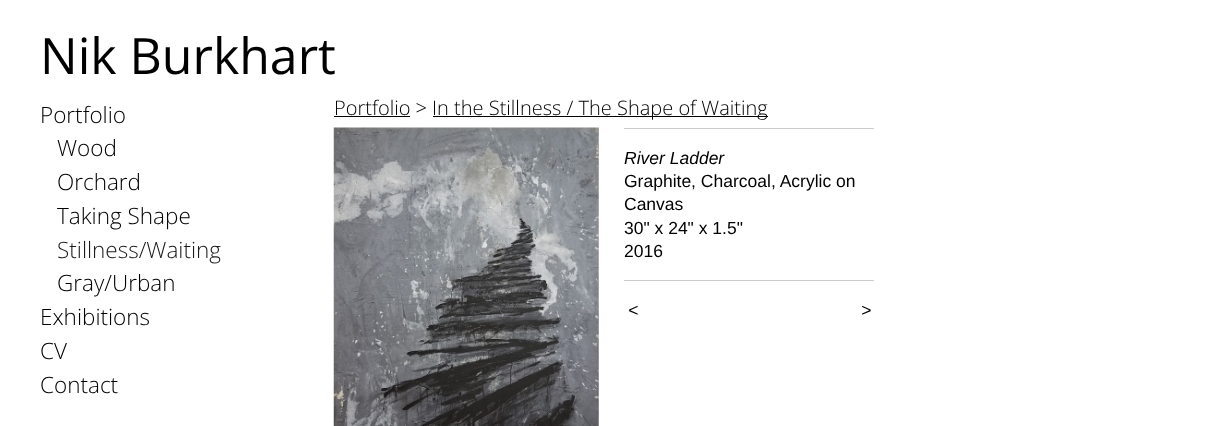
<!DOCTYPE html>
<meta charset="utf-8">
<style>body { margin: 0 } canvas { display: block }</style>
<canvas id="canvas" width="1214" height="426"></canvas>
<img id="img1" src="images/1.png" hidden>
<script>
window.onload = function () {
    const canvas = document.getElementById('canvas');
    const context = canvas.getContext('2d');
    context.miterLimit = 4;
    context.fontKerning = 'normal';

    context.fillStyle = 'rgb(255, 255, 255)';
    context.fillRect(0, 0, 1214, 426);
    context.fillStyle = 'rgb(0, 0, 0)';
    context.fillRect(334, 116, 76, 1);
    context.fillRect(433, 116, 335, 1);
    context.drawImage(document.getElementById('img1'), 333, 127, 266, 299);
    context.fillStyle = 'rgb(204, 204, 204)';
    context.fillRect(624, 128, 250, 1);
    context.fillRect(624, 280, 250, 1);
    context.font = '50px Open Sans';
    context.fillStyle = 'rgb(0, 0, 0)';
    context.fillText('Nik Burkhart', 40, 74);
    context.font = '300 22.5px Open Sans';
    context.fillText('Portfolio', 40, 123);
    context.fillText('Wood', 57, 156);
    context.fillText('Orchard', 57, 190);
    context.fillText('Taking Shape', 57, 224);
    context.fillStyle = 'rgb(26, 26, 26)';
    context.fillText('Stillness/Waiting', 57, 258);
    context.fillStyle = 'rgb(0, 0, 0)';
    context.fillText('Gray/Urban', 57, 291);
    context.fillText('Exhibitions', 40, 325);
    context.fillText('CV', 40, 359);
    context.fillText('Contact', 40, 393);
    context.font = '300 20px Open Sans';
    context.fillText('Portfolio >', 334, 115);
    context.fillText('In the Stillness / The Shape of Waiting', 432, 115);
    context.font = 'italic 17.5px Liberation Sans';
    context.fillText('River Ladder', 624, 164);
    context.font = '17.5px Liberation Sans';
    context.fillText('Graphite, Charcoal, Acrylic on', 624, 187);
    context.fillText('Canvas', 624, 210);
    context.fillText('30" x 24" x 1.5"', 624, 234);
    context.fillText('2016', 624, 257);
    context.letterSpacing = '1px';
    context.font = 'italic 17.5px Liberation Sans';
    context.fillText('<', 628, 316);
    context.fillText('>', 861, 316);
};
</script>
